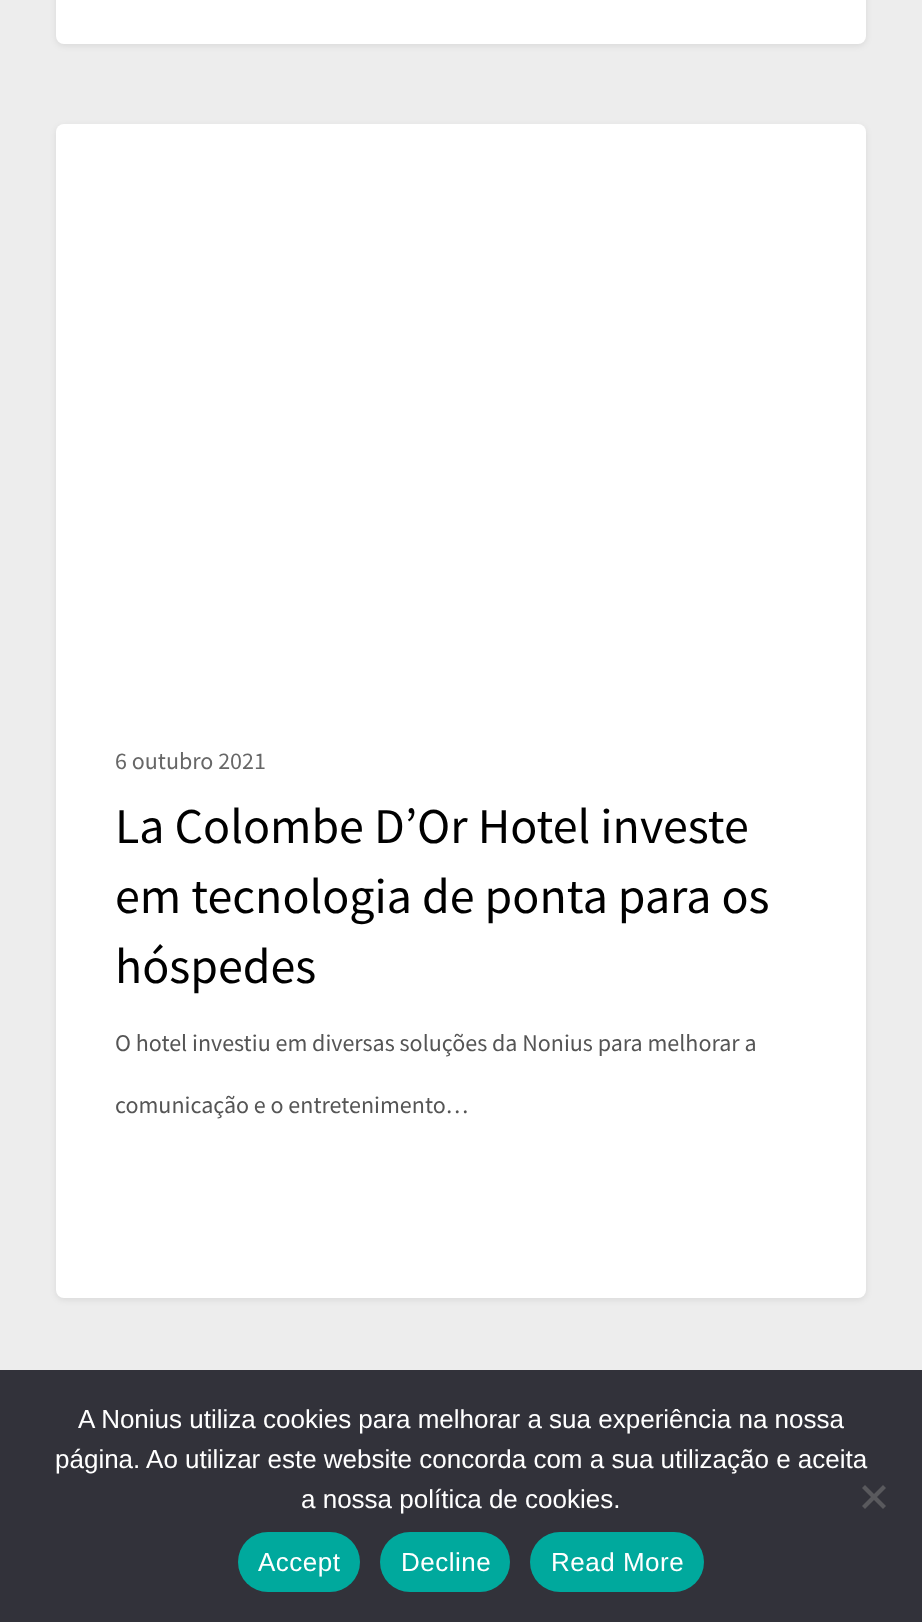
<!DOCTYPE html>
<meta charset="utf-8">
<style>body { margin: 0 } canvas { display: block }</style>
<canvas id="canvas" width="922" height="1622"></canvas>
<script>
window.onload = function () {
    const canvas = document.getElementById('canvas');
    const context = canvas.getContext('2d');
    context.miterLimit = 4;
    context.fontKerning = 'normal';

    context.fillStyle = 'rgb(237, 237, 237)';
    context.fillRect(0, 0, 922, 1622);
    context.fillStyle = 'rgba(0, 0, 0, 0.08)';
    context.filter = 'blur(3px)';
    context.beginPath();
    context.roundRect(56, -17, 810, 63, 8);
    context.fill();
    context.filter = 'none';
    context.fillStyle = 'rgb(255, 255, 255)';
    context.beginPath();
    context.roundRect(56, -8, 810, 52, 8);
    context.fill();
    context.fillStyle = 'rgba(0, 0, 0, 0.08)';
    context.filter = 'blur(3px)';
    context.beginPath();
    context.roundRect(56, 126, 810, 1174, 8);
    context.fill();
    context.filter = 'none';
    context.fillStyle = 'rgb(255, 255, 255)';
    context.beginPath();
    context.roundRect(56, 124, 810, 1174, 8);
    context.fill();
    context.fillStyle = 'rgb(50, 50, 58)';
    context.fillRect(0, 1370, 922, 252);
    context.fillStyle = 'rgb(89, 89, 93)';
    context.beginPath();
    context.moveTo(883, 1485);
    context.lineTo(886, 1488);
    context.lineTo(865, 1509);
    context.lineTo(862, 1506);
    context.closePath();
    context.fill();
    context.beginPath();
    context.moveTo(862, 1488);
    context.lineTo(865, 1485);
    context.lineTo(886, 1506);
    context.lineTo(883, 1509);
    context.closePath();
    context.fill();
    context.fillStyle = 'rgb(0, 169, 157)';
    context.beginPath();
    context.roundRect(238, 1532, 122, 60, 30);
    context.fill();
    context.beginPath();
    context.roundRect(380, 1532, 130, 60, 30);
    context.fill();
    context.beginPath();
    context.roundRect(530, 1532, 174, 60, 30);
    context.fill();
    context.font = '24px Source Sans Pro';
    context.fillStyle = 'rgb(103, 103, 103)';
    context.fillText('6 outubro 2021', 115, 769);
    context.font = '50px Source Sans Pro';
    context.fillStyle = 'rgb(0, 0, 0)';
    context.fillText('La Colombe D’Or Hotel investe', 115, 843);
    context.fillText('em tecnologia de ponta para os', 115, 913);
    context.fillText('hóspedes', 115, 983);
    context.font = '24px Source Sans Pro';
    context.fillStyle = 'rgb(85, 85, 85)';
    context.fillText('O hotel investiu em diversas soluções da Nonius para melhorar a', 115, 1051);
    context.fillText('comunicação e o entretenimento…', 115, 1113);
    context.font = '26px Liberation Sans';
    context.fillStyle = 'rgb(255, 255, 255)';
    context.fillText('A Nonius utiliza cookies para melhorar a sua experiência na nossa', 78, 1428);
    context.fillText('página. Ao utilizar este website concorda com a sua utilização e aceita', 55, 1468);
    context.fillText('a nossa política de cookies.', 301, 1508);
    context.letterSpacing = '0.5px';
    context.fillText('Accept', 258, 1571);
    context.fillText('Decline', 401, 1571);
    context.fillText('Read More', 551, 1571);
};
</script>
